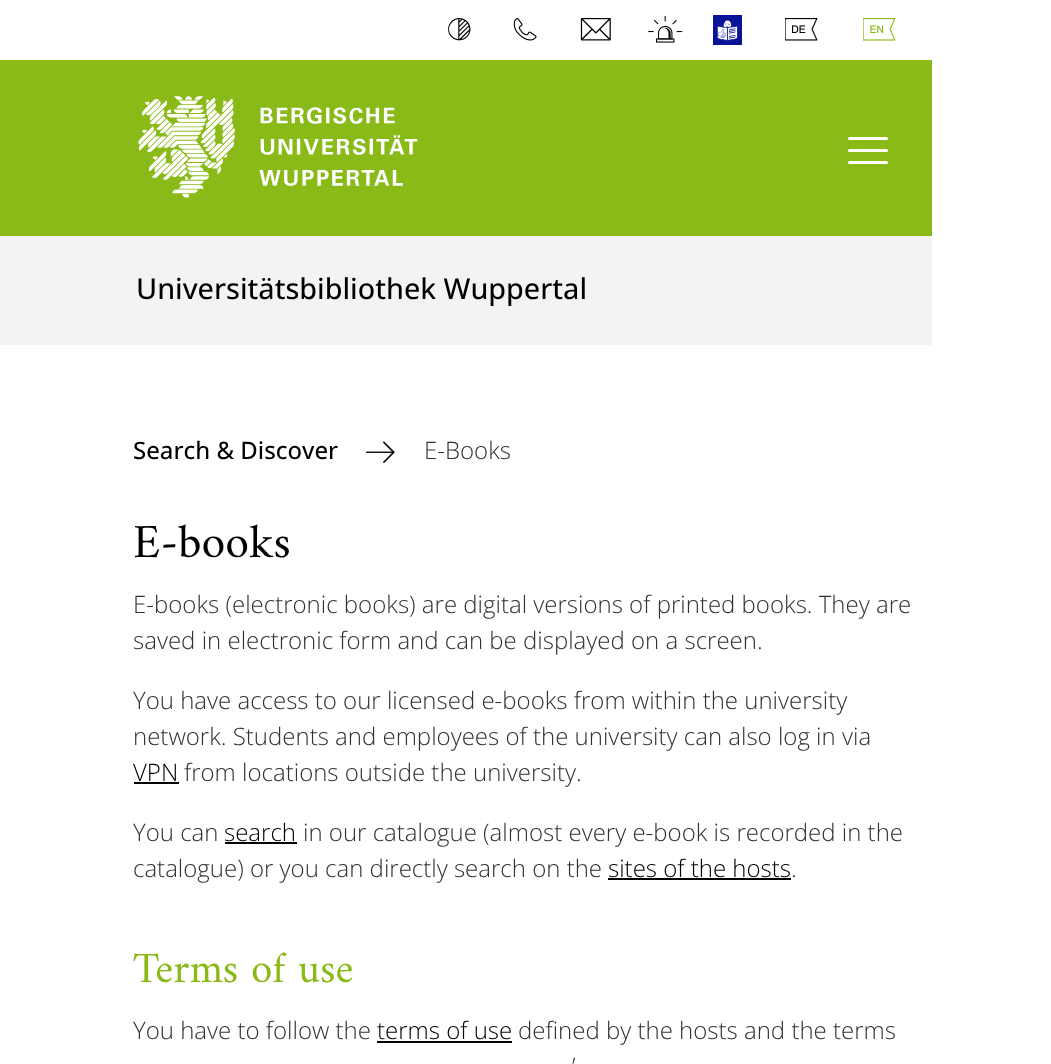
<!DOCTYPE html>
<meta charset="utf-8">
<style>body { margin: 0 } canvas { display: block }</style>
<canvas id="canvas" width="1051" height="1064"></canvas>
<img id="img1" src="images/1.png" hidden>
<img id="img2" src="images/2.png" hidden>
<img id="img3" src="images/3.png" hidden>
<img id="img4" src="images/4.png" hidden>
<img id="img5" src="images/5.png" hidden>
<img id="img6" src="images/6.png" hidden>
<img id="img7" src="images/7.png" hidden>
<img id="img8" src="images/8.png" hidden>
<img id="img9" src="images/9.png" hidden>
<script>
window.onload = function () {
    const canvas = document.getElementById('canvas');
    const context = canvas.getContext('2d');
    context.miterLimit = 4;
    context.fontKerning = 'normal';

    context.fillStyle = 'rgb(255, 255, 255)';
    context.fillRect(0, 0, 1051, 1064);
    context.drawImage(document.getElementById('img1'), 448, 18, 23, 23);
    context.drawImage(document.getElementById('img2'), 513, 18, 24, 23);
    context.drawImage(document.getElementById('img3'), 580, 18, 31, 23);
    context.drawImage(document.getElementById('img4'), 648, 15, 35, 28);
    context.drawImage(document.getElementById('img5'), 713, 15, 29, 30);
    context.drawImage(document.getElementById('img6'), 785, 18, 33, 23);
    context.drawImage(document.getElementById('img7'), 863, 18, 33, 23);
    context.fillStyle = 'rgb(137, 186, 23)';
    context.fillRect(0, 60, 932, 176);
    context.drawImage(document.getElementById('img8'), 138, 96, 280, 102);
    context.fillStyle = 'rgb(255, 255, 255)';
    context.beginPath();
    context.roundRect(848, 137, 40, 3, 1.5);
    context.fill();
    context.beginPath();
    context.roundRect(848, 149, 40, 3, 1.5);
    context.fill();
    context.beginPath();
    context.roundRect(848, 161, 40, 3, 1.5);
    context.fill();
    context.fillStyle = 'rgb(243, 243, 243)';
    context.fillRect(0, 236, 932, 109);
    context.drawImage(document.getElementById('img9'), 366, 441, 29, 22);
    context.fillStyle = 'rgb(0, 0, 0)';
    context.fillRect(134, 782, 45, 2);
    context.fillRect(225, 842, 72, 2);
    context.fillRect(608, 878, 183, 2);
    context.fillRect(377, 1041, 135, 2);
    context.font = '500 28.75px Open Sans';
    context.fillText('Universitätsbibliothek Wuppertal', 136, 299);
    context.font = '500 24px Open Sans';
    context.fillText('Search & Discover', 133, 459);
    context.font = '300 24px Open Sans';
    context.fillStyle = 'rgb(50, 50, 50)';
    context.fillText('E-Books', 424, 459);
    context.font = '48px Amiri';
    context.fillStyle = 'rgb(0, 0, 0)';
    context.fillText('E-books', 133, 557);
    context.font = '300 24px Open Sans';
    context.fillStyle = 'rgb(50, 50, 50)';
    context.fillText('E-books (electronic books) are digital versions of printed books. They are', 133, 613);
    context.fillText('saved in electronic form and can be displayed on a screen.', 133, 649);
    context.fillText('You have access to our licensed e-books from within the university', 133, 709);
    context.fillText('network. Students and employees of the university can also log in via', 133, 745);
    context.fillStyle = 'rgb(0, 0, 0)';
    context.fillText('VPN', 133, 781);
    context.fillStyle = 'rgb(50, 50, 50)';
    context.fillText('from locations outside the university.', 184, 781);
    context.fillText('You can', 133, 841);
    context.fillStyle = 'rgb(0, 0, 0)';
    context.fillText('search', 224, 841);
    context.fillStyle = 'rgb(50, 50, 50)';
    context.fillText('in our catalogue (almost every e-book is recorded in the', 303, 841);
    context.fillText('catalogue) or you can directly search on the', 133, 877);
    context.fillStyle = 'rgb(0, 0, 0)';
    context.fillText('sites of the hosts', 608, 877);
    context.fillStyle = 'rgb(50, 50, 50)';
    context.fillText('.', 791, 877);
    context.font = '43.25px Amiri';
    context.fillStyle = 'rgb(137, 186, 23)';
    context.fillText('Terms of use', 133, 982);
    context.font = '300 24px Open Sans';
    context.fillStyle = 'rgb(50, 50, 50)';
    context.fillText('You have to follow the', 133, 1039);
    context.fillStyle = 'rgb(0, 0, 0)';
    context.fillText('terms of use', 377, 1039);
    context.fillStyle = 'rgb(50, 50, 50)';
    context.fillText('defined by the hosts and the terms', 518, 1039);
    context.fillText('’', 572, 1075);
};
</script>
